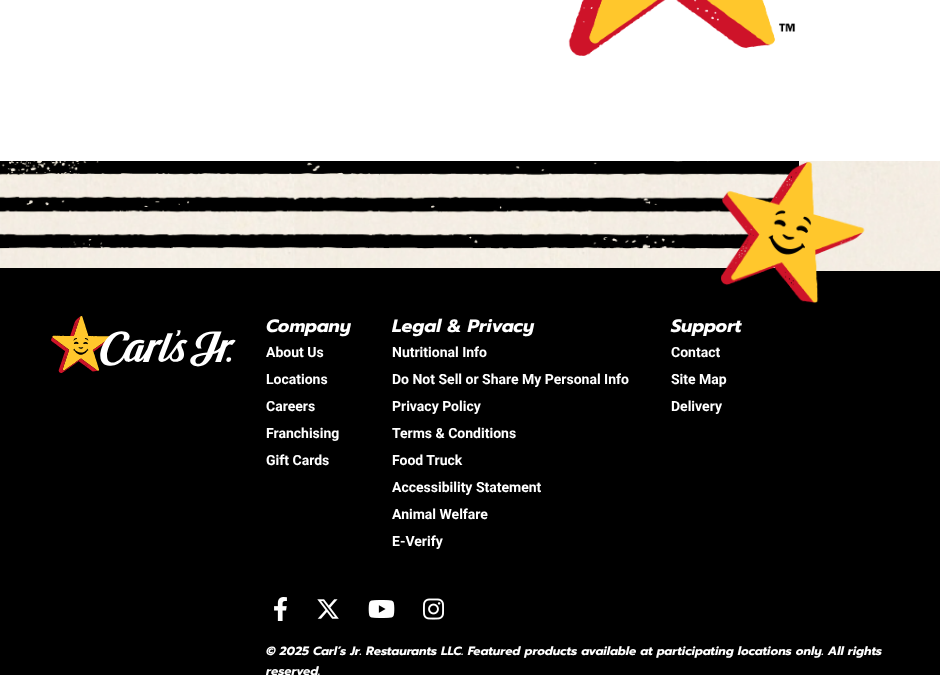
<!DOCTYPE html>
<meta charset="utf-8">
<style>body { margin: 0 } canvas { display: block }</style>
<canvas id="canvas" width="940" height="675"></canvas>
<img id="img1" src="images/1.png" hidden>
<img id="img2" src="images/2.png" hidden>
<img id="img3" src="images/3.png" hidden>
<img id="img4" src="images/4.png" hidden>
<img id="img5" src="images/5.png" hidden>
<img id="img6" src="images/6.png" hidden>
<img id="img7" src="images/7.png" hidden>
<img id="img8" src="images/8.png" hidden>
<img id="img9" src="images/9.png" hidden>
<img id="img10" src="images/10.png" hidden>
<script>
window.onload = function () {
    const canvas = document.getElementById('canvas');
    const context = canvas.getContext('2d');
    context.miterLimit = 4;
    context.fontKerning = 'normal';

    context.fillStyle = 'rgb(255, 255, 255)';
    context.fillRect(0, 0, 940, 675);
    context.drawImage(document.getElementById('img1'), 568, 0, 228, 56);
    context.drawImage(document.getElementById('img2'), 0, 161, 790, 107);
    context.drawImage(document.getElementById('img3'), 0, 161, 799, 88);
    context.fillStyle = 'rgb(0, 0, 0)';
    context.fillRect(0, 268, 940, 407);
    context.drawImage(document.getElementById('img4'), 799, 161, 141, 110);
    context.drawImage(document.getElementById('img5'), 721, 162, 144, 142);
    context.drawImage(document.getElementById('img6'), 51, 316, 185, 57);
    context.drawImage(document.getElementById('img7'), 274, 597, 13, 24);
    context.drawImage(document.getElementById('img8'), 317, 599, 22, 20);
    context.drawImage(document.getElementById('img9'), 368, 600, 27, 18);
    context.drawImage(document.getElementById('img10'), 423, 598, 21, 22);
    context.font = 'italic bold 18px Prompt';
    context.fillStyle = 'rgb(255, 255, 255)';
    context.fillText('Company', 266, 332);
    context.font = 'bold 14px Roboto';
    context.fillText('About Us', 266, 357);
    context.fillText('Locations', 266, 384);
    context.fillText('Careers', 266, 411);
    context.fillText('Franchising', 266, 438);
    context.fillText('Gift Cards', 266, 465);
    context.font = 'italic bold 18px Prompt';
    context.fillText('Legal & Privacy', 392, 332);
    context.font = 'bold 14px Roboto';
    context.fillText('Nutritional Info', 392, 357);
    context.fillText('Do Not Sell or Share My Personal Info', 392, 384);
    context.fillText('Privacy Policy', 392, 411);
    context.fillText('Terms & Conditions', 392, 438);
    context.fillText('Food Truck', 392, 465);
    context.fillText('Accessibility Statement', 392, 492);
    context.fillText('Animal Welfare', 392, 519);
    context.fillText('E-Verify', 392, 546);
    context.font = 'italic bold 18px Prompt';
    context.fillText('Support', 671, 332);
    context.font = 'bold 14px Roboto';
    context.fillText('Contact', 671, 357);
    context.fillText('Site Map', 671, 384);
    context.fillText('Delivery', 671, 411);
    context.font = 'italic bold 12px Prompt';
    context.fillText('© 2025 Carl’s Jr. Restaurants LLC. Featured products available at participating locations only. All rights', 266, 655);
    context.fillText('reserved.', 266, 675);
};
</script>
